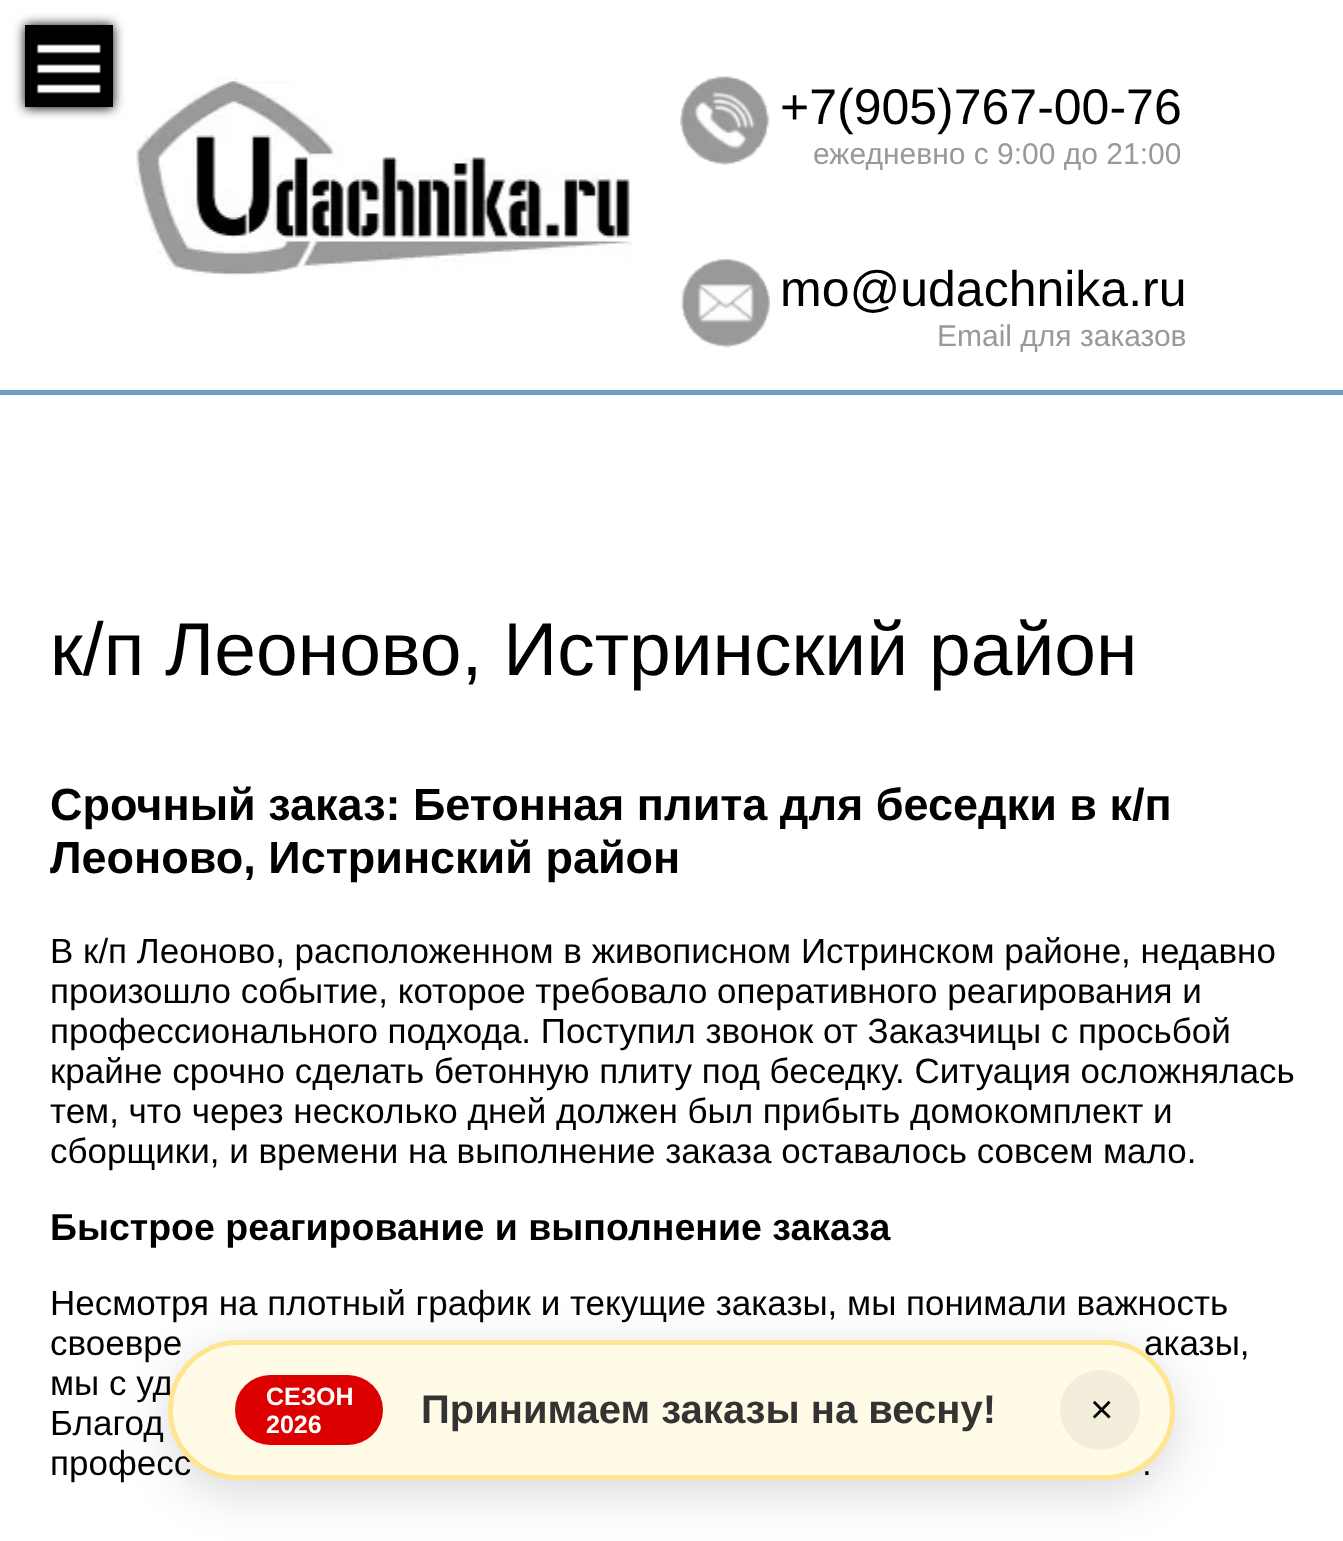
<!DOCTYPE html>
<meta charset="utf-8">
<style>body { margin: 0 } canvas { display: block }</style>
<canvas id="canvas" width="1343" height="1541"></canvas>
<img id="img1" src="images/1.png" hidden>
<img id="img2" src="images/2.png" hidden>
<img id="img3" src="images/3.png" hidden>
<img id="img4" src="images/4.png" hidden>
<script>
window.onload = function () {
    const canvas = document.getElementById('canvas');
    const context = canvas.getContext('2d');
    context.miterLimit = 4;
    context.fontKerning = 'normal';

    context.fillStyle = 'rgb(255, 255, 255)';
    context.fillRect(0, 0, 1343, 1541);
    context.fillStyle = 'rgb(0, 0, 0)';
    context.filter = 'blur(6px)';
    context.beginPath();
    context.rect(25, 25, 88, 83);
    context.fill();
    context.filter = 'none';
    context.drawImage(document.getElementById('img1'), 25, 25, 88, 82);
    context.fillStyle = 'rgb(105, 159, 199)';
    context.fillRect(0, 390, 1343, 5);
    context.drawImage(document.getElementById('img2'), 135, 77, 498, 199);
    context.drawImage(document.getElementById('img3'), 680, 76, 90, 89);
    context.drawImage(document.getElementById('img4'), 681, 259, 89, 89);
    context.fillStyle = 'rgba(0, 0, 0, 0.15)';
    context.filter = 'blur(25px)';
    context.beginPath();
    context.roundRect(168, 1353, 1007, 140, 70);
    context.fill();
    context.filter = 'none';
    context.font = '50px Liberation Sans';
    context.fillStyle = 'rgb(0, 0, 0)';
    context.fillText('+7(905)767-00-76', 780, 124);
    context.font = '30px Liberation Sans';
    context.fillStyle = 'rgb(153, 153, 153)';
    context.fillText('ежедневно с 9:00 до 21:00', 813, 164);
    context.font = '50px Liberation Sans';
    context.fillStyle = 'rgb(0, 0, 0)';
    context.fillText('mo@udachnika.ru', 780, 306);
    context.font = '30px Liberation Sans';
    context.fillStyle = 'rgb(153, 153, 153)';
    context.fillText('Email для заказов', 937, 346);
    context.font = '75px Liberation Sans';
    context.fillStyle = 'rgb(0, 0, 0)';
    context.fillText('к/п Леоново, Истринский район', 50, 675);
    context.font = 'bold 45px Liberation Sans';
    context.fillText('Срочный заказ: Бетонная плита для беседки в к/п', 50, 820);
    context.fillText('Леоново, Истринский район', 50, 873);
    context.font = '35px Liberation Sans';
    context.fillText('В к/п Леоново, расположенном в живописном Истринском районе, недавно', 50, 963);
    context.fillText('произошло событие, которое требовало оперативного реагирования и', 50, 1003);
    context.fillText('профессионального подхода. Поступил звонок от Заказчицы с просьбой', 50, 1043);
    context.fillText('крайне срочно сделать бетонную плиту под беседку. Ситуация осложнялась', 50, 1083);
    context.fillText('тем, что через несколько дней должен был прибыть домокомплект и', 50, 1123);
    context.fillText('сборщики, и времени на выполнение заказа оставалось совсем мало.', 50, 1163);
    context.font = 'bold 37.5px Liberation Sans';
    context.fillText('Быстрое реагирование и выполнение заказа', 50, 1240);
    context.font = '35px Liberation Sans';
    context.fillText('Несмотря на плотный график и текущие заказы, мы понимали важность', 50, 1315);
    context.fillText('своевре', 50, 1355);
    context.fillText('аказы,', 1144, 1355);
    context.fillText('мы с уд', 50, 1395);
    context.fillText('Благод', 50, 1435);
    context.fillText('професс', 50, 1475);
    context.fillText('.', 1142, 1475);
    context.fillStyle = 'rgb(255, 251, 230)';
    context.beginPath();
    context.roundRect(170.5, 1342.5, 1002, 135, 67.5);
    context.fill();
    context.strokeStyle = 'rgb(255, 229, 143)';
    context.lineWidth = 5;
    context.stroke();
    context.fillStyle = 'rgb(221, 0, 0)';
    context.beginPath();
    context.roundRect(235, 1375, 148, 70, 35);
    context.fill();
    context.font = 'bold 25px Liberation Sans';
    context.fillStyle = 'rgb(255, 255, 255)';
    context.fillText('СЕЗОН', 266, 1405);
    context.fillText('2026', 266, 1433);
    context.font = 'bold 40px Liberation Sans';
    context.fillStyle = 'rgb(51, 51, 51)';
    context.fillText('Принимаем заказы на весну!', 421, 1423);
    context.fillStyle = 'rgb(242, 238, 219)';
    context.beginPath();
    context.arc(1100, 1410, 40, 0, 2 * Math.PI);
    context.fill();
    context.font = '40px Liberation Sans';
    context.fillStyle = 'rgb(0, 0, 0)';
    context.fillText('×', 1090, 1423);
};
</script>
